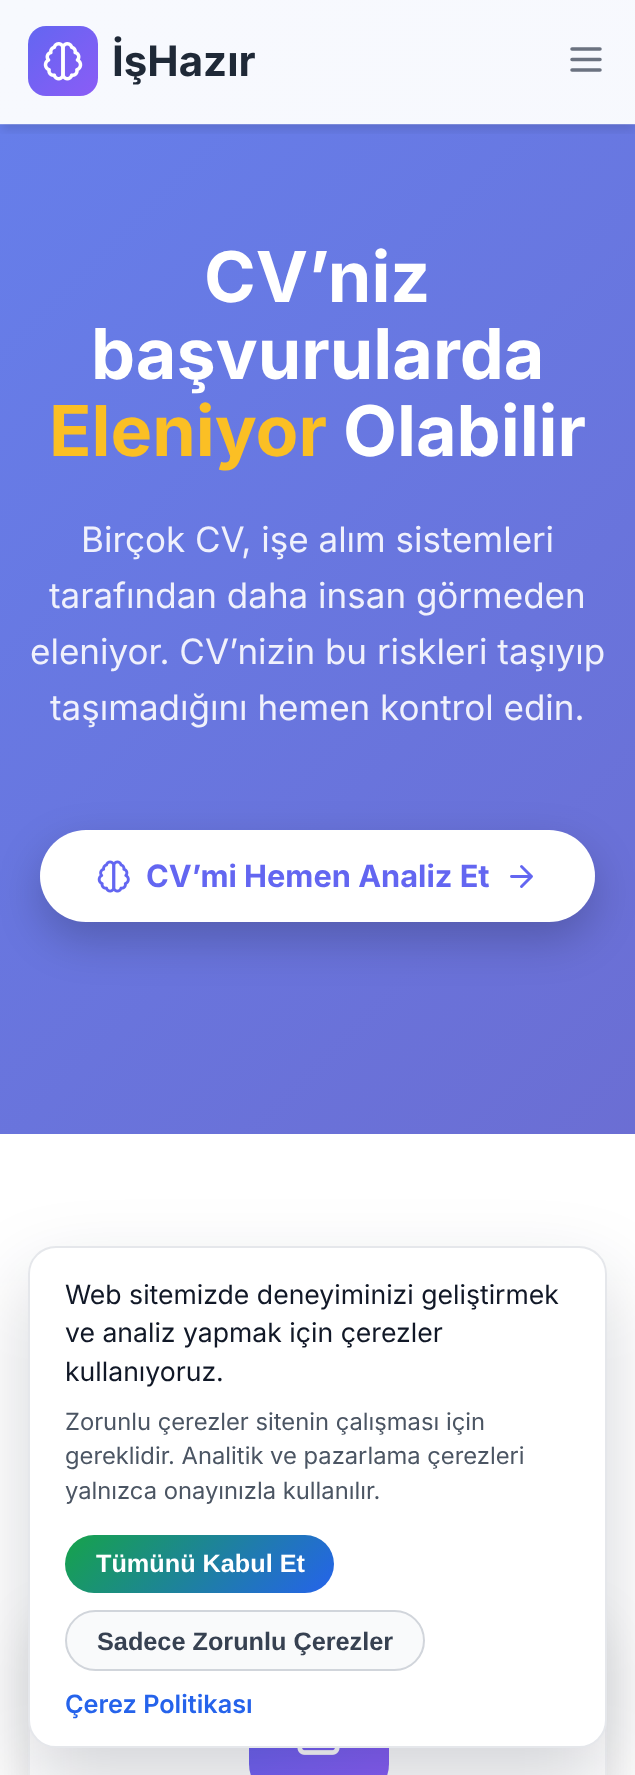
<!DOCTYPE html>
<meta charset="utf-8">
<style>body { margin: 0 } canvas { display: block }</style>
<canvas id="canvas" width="635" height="1775"></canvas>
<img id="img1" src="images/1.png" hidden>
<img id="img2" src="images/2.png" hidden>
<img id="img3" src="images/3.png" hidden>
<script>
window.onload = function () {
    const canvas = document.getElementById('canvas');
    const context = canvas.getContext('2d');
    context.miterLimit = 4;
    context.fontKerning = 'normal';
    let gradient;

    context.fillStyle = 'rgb(255, 255, 255)';
    context.fillRect(0, 0, 635, 1775);
    gradient = context.createLinearGradient(-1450, 1450, 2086, 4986);
    gradient.addColorStop(0, 'rgb(247, 249, 254)');
    gradient.addColorStop(1, 'rgb(248, 246, 250)');
    context.fillStyle = gradient;
    context.fillRect(0, 0, 635, 124);
    gradient = context.createLinearGradient(-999, 1124, 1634, 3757);
    gradient.addColorStop(0, 'rgb(102, 126, 234)');
    gradient.addColorStop(1, 'rgb(118, 75, 162)');
    context.fillStyle = gradient;
    context.fillRect(0, 124, 635, 1010);
    context.save();
    context.beginPath();
    context.rect(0, 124, 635, 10);
    context.clip();
    context.fillStyle = 'rgba(0, 0, 0, 0.1)';
    context.filter = 'blur(5px)';
    context.beginPath();
    context.rect(2, 9, 632, 121);
    context.fill();
    context.filter = 'none';
    context.restore();
    context.fillStyle = 'rgba(255, 255, 255, 0.2)';
    context.fillRect(0, 124, 635, 1);
    gradient = context.createLinearGradient(28, 26, 98, 96);
    gradient.addColorStop(0, 'rgb(99, 102, 241)');
    gradient.addColorStop(1, 'rgb(139, 92, 246)');
    context.fillStyle = gradient;
    context.beginPath();
    context.roundRect(28, 26, 70, 70, 18);
    context.fill();
    context.drawImage(document.getElementById('img1'), 43, 42, 40, 39);
    context.beginPath();
    context.moveTo(572, 59.5);
    context.lineTo(600, 59.5);
    context.moveTo(572, 49);
    context.lineTo(600, 49);
    context.moveTo(572, 70);
    context.lineTo(600, 70);
    context.strokeStyle = 'rgb(107, 114, 128)';
    context.lineWidth = 3.5;
    context.lineCap = 'round';
    context.lineJoin = 'round';
    context.stroke();
    context.fillStyle = 'rgba(0, 0, 0, 0.2)';
    context.filter = 'blur(22px)';
    context.beginPath();
    context.roundRect(40, 847, 555, 93, 46.5);
    context.fill();
    context.filter = 'none';
    context.fillStyle = 'rgb(255, 255, 255)';
    context.beginPath();
    context.roundRect(40, 830, 555, 92, 46);
    context.fill();
    context.drawImage(document.getElementById('img2'), 97, 860, 33, 33);
    context.beginPath();
    context.moveTo(511.5, 876.5);
    context.lineTo(531.5, 876.5);
    context.moveTo(521.5, 866.5);
    context.lineTo(531.5, 876.5);
    context.lineTo(521.5, 886.5);
    context.strokeStyle = 'rgb(99, 102, 241)';
    context.lineWidth = 2.9;
    context.stroke();
    context.fillStyle = 'rgba(0, 0, 0, 0.1)';
    context.filter = 'blur(26px)';
    context.beginPath();
    context.roundRect(28, 1619, 579, 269, 35);
    context.fill();
    context.filter = 'none';
    context.fillStyle = 'rgb(255, 255, 255)';
    context.fillRect(30, 1730, 575, 45);
    context.strokeStyle = 'rgb(243, 244, 246)';
    context.lineWidth = 2;
    context.lineJoin = 'miter';
    context.strokeRect(29, 1602, 577, 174);
    gradient = context.createLinearGradient(249, 1659, 389, 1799);
    gradient.addColorStop(0, 'rgb(99, 102, 241)');
    gradient.addColorStop(1, 'rgb(139, 92, 246)');
    context.fillStyle = gradient;
    context.beginPath();
    context.roundRect(249, 1659, 140, 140, 35);
    context.fill();
    context.drawImage(document.getElementById('img3'), 297, 1748, 43, 7);
    context.fillStyle = 'rgba(15, 23, 42, 0.18)';
    context.filter = 'blur(39.5px)';
    context.beginPath();
    context.roundRect(28, 1281, 579, 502, 28);
    context.fill();
    context.filter = 'none';
    context.fillStyle = 'rgb(255, 255, 255)';
    context.beginPath();
    context.roundRect(29, 1247, 577, 500, 27);
    context.fill();
    context.strokeStyle = 'rgb(229, 231, 235)';
    context.stroke();
    gradient = context.createLinearGradient(118, 1482, 281, 1645);
    gradient.addColorStop(0, 'rgb(22, 163, 74)');
    gradient.addColorStop(1, 'rgb(37, 99, 235)');
    context.fillStyle = gradient;
    context.beginPath();
    context.roundRect(65, 1535, 269, 58, 29);
    context.fill();
    context.fillStyle = 'rgb(249, 250, 251)';
    context.beginPath();
    context.roundRect(66, 1611, 358, 59, 29.5);
    context.fill();
    context.strokeStyle = 'rgb(209, 213, 219)';
    context.stroke();
    context.font = 'bold 42px Inter';
    context.fillStyle = 'rgb(31, 41, 55)';
    context.fillText('İşHazır', 112, 76);
    context.font = 'bold 70px Inter';
    context.fillStyle = 'rgb(255, 255, 255)';
    context.fillText('CV’niz', 204, 302);
    context.fillText('başvurularda', 91, 379);
    context.fillStyle = 'rgb(251, 191, 36)';
    context.fillText('Eleniyor', 49, 456);
    context.fillStyle = 'rgb(255, 255, 255)';
    context.fillText('Olabilir', 343, 456);
    context.font = '35px Inter';
    context.fillStyle = 'rgb(240, 241, 252)';
    context.fillText('Birçok CV, işe alım sistemleri', 81, 552);
    context.fillText('tarafından daha insan görmeden', 49, 608);
    context.fillText('eleniyor. CV’nizin bu riskleri taşıyıp', 30, 664);
    context.fillText('taşımadığını hemen kontrol edin.', 50, 720);
    context.font = 'bold 30.75px Inter';
    context.fillStyle = 'rgb(99, 102, 241)';
    context.fillText('CV’mi Hemen Analiz Et', 146, 887);
    context.font = '26.6px Inter';
    context.fillStyle = 'rgb(17, 24, 39)';
    context.fillText('Web sitemizde deneyiminizi geliştirmek', 65, 1304);
    context.fillText('ve analiz yapmak için çerezler', 65, 1342);
    context.fillText('kullanıyoruz.', 65, 1381);
    context.font = '23.75px Inter';
    context.fillStyle = 'rgb(75, 85, 99)';
    context.fillText('Zorunlu çerezler sitenin çalışması için', 65, 1430);
    context.fillText('gereklidir. Analitik ve pazarlama çerezleri', 65, 1464);
    context.fillText('yalnızca onayınızla kullanılır.', 65, 1499);
    context.font = 'bold 25.25px Liberation Sans';
    context.fillStyle = 'rgb(255, 255, 255)';
    context.fillText('Tümünü Kabul Et', 96, 1572);
    context.fillStyle = 'rgb(55, 65, 81)';
    context.fillText('Sadece Zorunlu Çerezler', 97, 1650);
    context.font = '600 25.25px Inter';
    context.fillStyle = 'rgb(37, 99, 235)';
    context.fillText('Çerez Politikası', 65, 1713);
};
</script>
